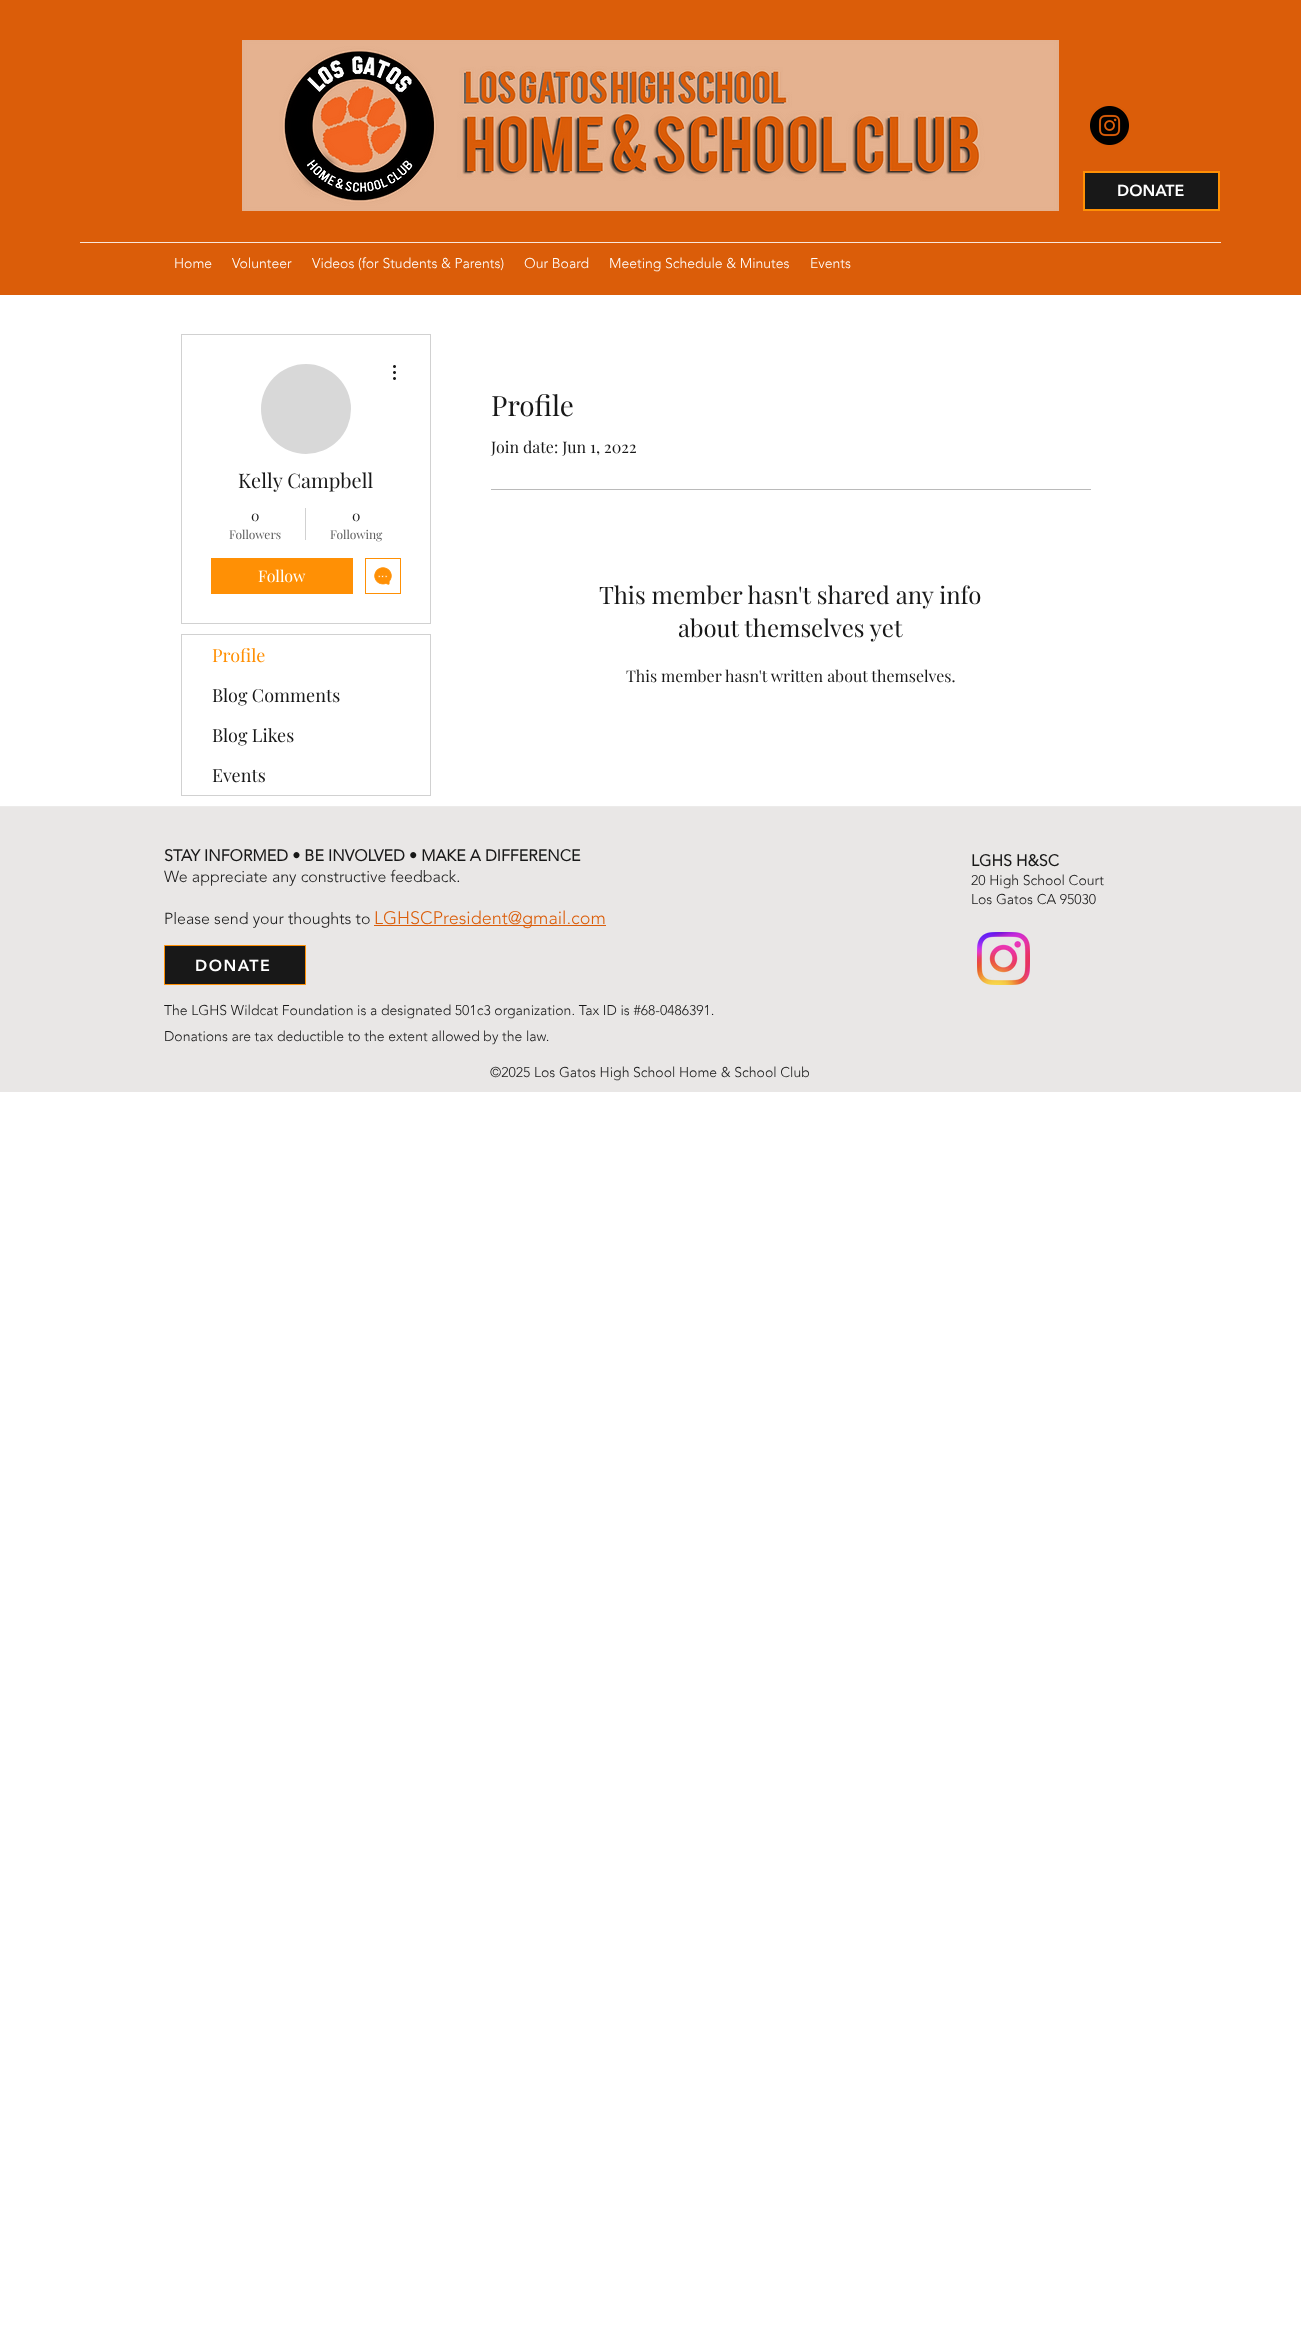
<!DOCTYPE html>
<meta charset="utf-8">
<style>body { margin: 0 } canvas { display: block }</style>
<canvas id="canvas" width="1301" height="2349"></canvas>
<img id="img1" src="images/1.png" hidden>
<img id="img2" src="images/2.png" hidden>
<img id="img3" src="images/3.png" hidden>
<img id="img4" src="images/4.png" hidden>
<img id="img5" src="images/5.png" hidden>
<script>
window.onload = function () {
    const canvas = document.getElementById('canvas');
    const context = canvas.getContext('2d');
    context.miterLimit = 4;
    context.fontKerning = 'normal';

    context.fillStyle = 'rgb(255, 255, 255)';
    context.fillRect(0, 0, 1301, 2349);
    context.fillStyle = 'rgb(219, 93, 9)';
    context.fillRect(0, 0, 1301, 295);
    context.drawImage(document.getElementById('img1'), 242, 40, 817, 171);
    context.drawImage(document.getElementById('img2'), 1090, 106, 39, 39);
    context.fillStyle = 'rgb(24, 24, 24)';
    context.beginPath();
    context.rect(1084, 172, 135, 38);
    context.fill();
    context.strokeStyle = 'rgb(255, 144, 5)';
    context.lineWidth = 2;
    context.stroke();
    context.fillStyle = 'rgb(250, 231, 218)';
    context.fillRect(80, 242, 1141, 1);
    context.strokeStyle = 'rgb(209, 209, 209)';
    context.lineWidth = 1;
    context.strokeRect(181.5, 334.5, 249, 289);
    context.fillStyle = 'rgb(216, 216, 216)';
    context.beginPath();
    context.arc(306, 409, 45, 0, 2 * Math.PI);
    context.fill();
    context.drawImage(document.getElementById('img3'), 393, 365, 3, 15);
    context.fillStyle = 'rgb(209, 209, 209)';
    context.fillRect(305, 508, 1, 32);
    context.fillStyle = 'rgb(255, 144, 5)';
    context.fillRect(211, 558, 142, 36);
    context.strokeStyle = 'rgb(255, 144, 5)';
    context.strokeRect(365.5, 558.5, 35, 35);
    context.drawImage(document.getElementById('img4'), 374, 567, 18, 18);
    context.strokeStyle = 'rgb(209, 209, 209)';
    context.strokeRect(181.5, 634.5, 249, 161);
    context.fillStyle = 'rgb(186, 186, 186)';
    context.fillRect(491, 489, 600, 1);
    context.fillStyle = 'rgb(233, 231, 230)';
    context.fillRect(0, 807, 1301, 285);
    context.fillStyle = 'rgb(236, 235, 234)';
    context.fillRect(0, 806, 1301, 1);
    context.fillStyle = 'rgb(219, 93, 9)';
    context.fillRect(374, 925, 232, 1);
    context.fillStyle = 'rgb(24, 24, 24)';
    context.beginPath();
    context.rect(164.5, 945.5, 141, 39);
    context.fill();
    context.strokeStyle = 'rgb(255, 144, 5)';
    context.stroke();
    context.drawImage(document.getElementById('img5'), 977, 932, 53, 53);
    context.font = '900 16px "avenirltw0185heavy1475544"';
    context.fillStyle = 'rgb(255, 255, 255)';
    context.fillText('DONATE', 1117, 196);
    context.font = '300 14px "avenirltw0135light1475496"';
    context.fillText('Home', 174, 268);
    context.fillText('Volunteer', 232, 268);
    context.fillText('Videos (for Students & Parents)', 312, 268);
    context.fillText('Our Board', 524, 268);
    context.fillText('Meeting Schedule & Minutes', 609, 268);
    context.fillText('Events', 810, 268);
    context.font = '20px Playfair Display';
    context.fillStyle = 'rgb(24, 24, 24)';
    context.fillText('Kelly Campbell', 238, 488);
    context.font = '14px Playfair Display';
    context.fillText('0', 251, 521);
    context.font = '12px Playfair Display';
    context.fillStyle = 'rgb(93, 93, 93)';
    context.fillText('Followers', 229, 539);
    context.font = '14px Playfair Display';
    context.fillStyle = 'rgb(24, 24, 24)';
    context.fillText('0', 352, 521);
    context.font = '12px Playfair Display';
    context.fillStyle = 'rgb(93, 93, 93)';
    context.fillText('Following', 330, 539);
    context.font = '16px Playfair Display';
    context.fillStyle = 'rgb(255, 255, 255)';
    context.fillText('Follow', 258, 582);
    context.font = '18px Playfair Display';
    context.fillStyle = 'rgb(255, 144, 5)';
    context.fillText('Profile', 212, 662);
    context.fillStyle = 'rgb(24, 24, 24)';
    context.fillText('Blog Comments', 212, 702);
    context.fillText('Blog Likes', 212, 742);
    context.fillText('Events', 212, 782);
    context.font = '28px Playfair Display';
    context.fillText('Profile', 491, 416);
    context.font = '16px Playfair Display';
    context.fillText('Join date: Jun 1, 2022', 491, 453);
    context.font = '24px Playfair Display';
    context.fillText('This member hasn\'t shared any info', 599, 604);
    context.fillText('about themselves yet', 678, 637);
    context.font = '16px Playfair Display';
    context.fillText('This member hasn\'t written about themselves.', 626, 682);
    context.font = 'bold 16px "avenirltw0135light1475496"';
    context.fillText('STAY INFORMED • BE INVOLVED • MAKE A DIFFERENCE', 164, 861);
    context.font = '300 16px "avenirltw0135light1475496"';
    context.fillText('We appreciate any constructive feedback.', 164, 882);
    context.fillText('Please send your thoughts to', 164, 924);
    context.font = '300 18px "avenirltw0135light1475496"';
    context.fillStyle = 'rgb(219, 93, 9)';
    context.fillText('LGHSCPresident@gmail.com', 374, 924);
    context.font = 'bold 16px "avenirltw0135light1475496"';
    context.fillStyle = 'rgb(24, 24, 24)';
    context.fillText('LGHS H&SC', 971, 866);
    context.font = '300 14px "avenirltw0135light1475496"';
    context.fillText('20 High School Court', 971, 885);
    context.fillText('Los Gatos CA 95030', 971, 904);
    context.letterSpacing = '1.5px';
    context.font = '900 16px "avenirltw0185heavy1475544"';
    context.fillStyle = 'rgb(255, 255, 255)';
    context.fillText('DONATE', 195, 971);
    context.letterSpacing = '0px';
    context.font = '300 14px "avenirltw0135light1475496"';
    context.fillStyle = 'rgb(24, 24, 24)';
    context.fillText('The LGHS Wildcat Foundation is a designated 501c3 organization. Tax ID is #68-0486391.', 164, 1015);
    context.fillText('Donations are tax deductible to the extent allowed by the law.', 164, 1041);
    context.fillText('©2025 Los Gatos High School Home & School Club', 490, 1077);
};
</script>
